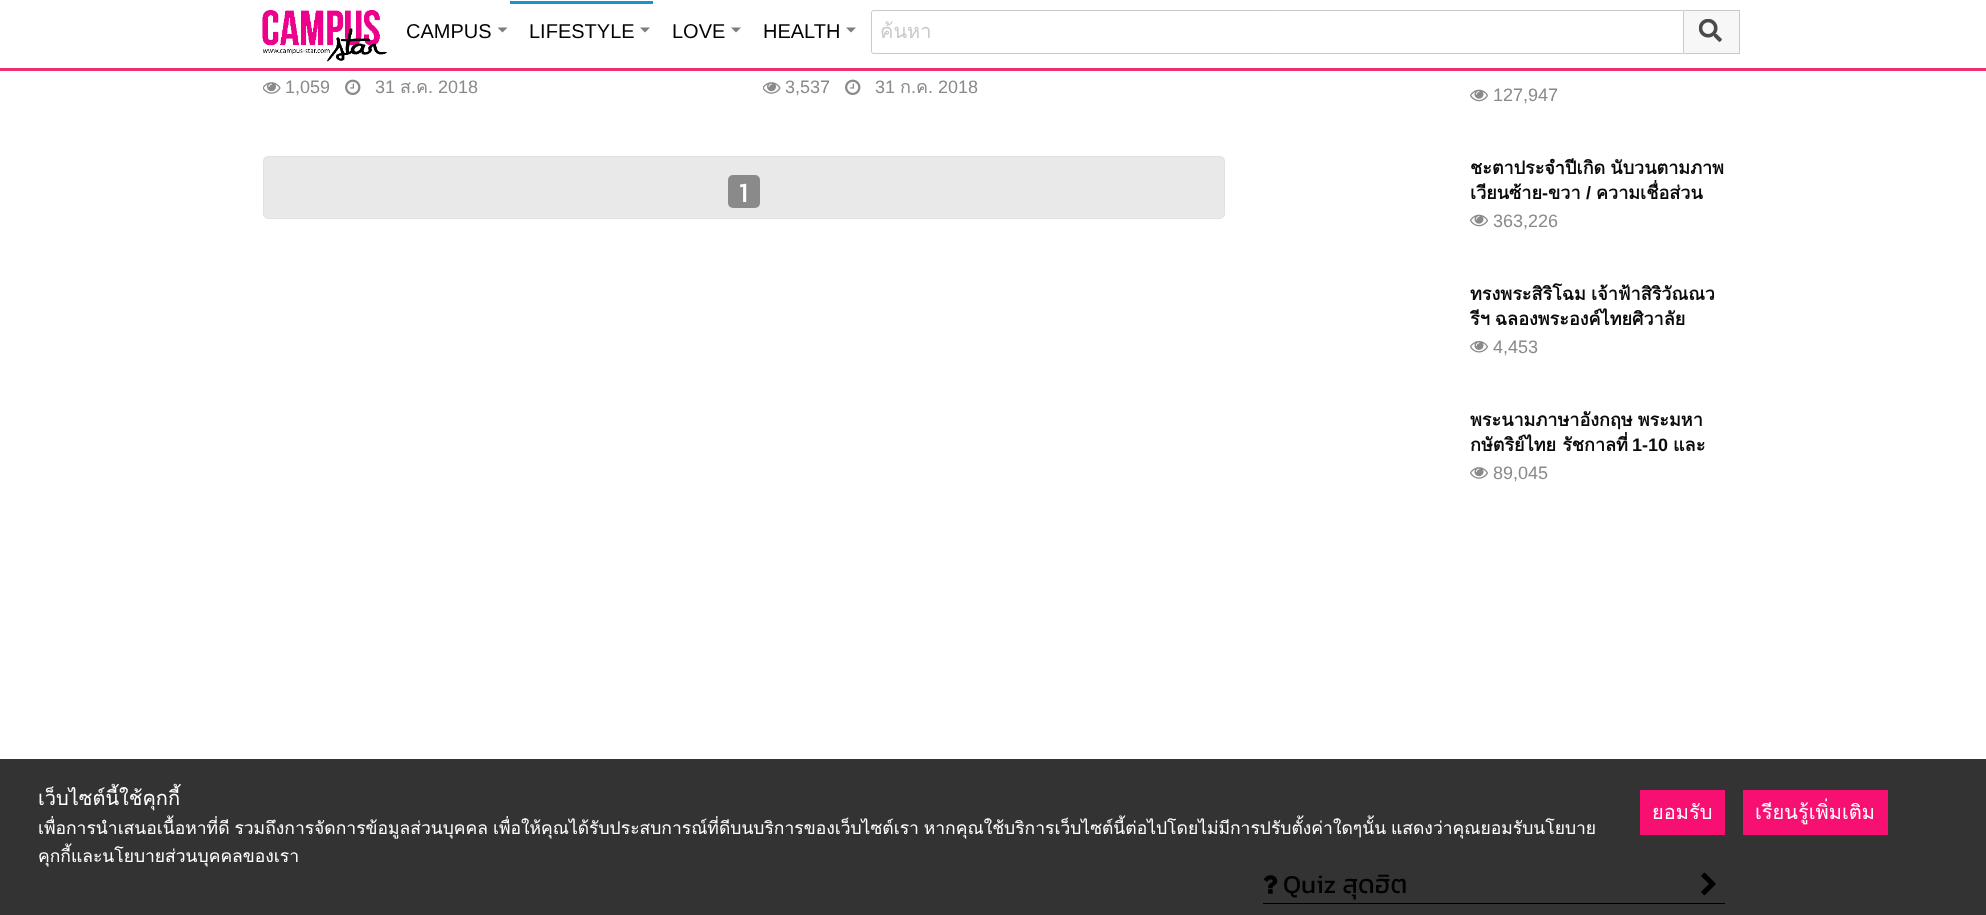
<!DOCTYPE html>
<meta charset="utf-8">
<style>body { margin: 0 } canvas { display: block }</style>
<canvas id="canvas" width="1986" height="915"></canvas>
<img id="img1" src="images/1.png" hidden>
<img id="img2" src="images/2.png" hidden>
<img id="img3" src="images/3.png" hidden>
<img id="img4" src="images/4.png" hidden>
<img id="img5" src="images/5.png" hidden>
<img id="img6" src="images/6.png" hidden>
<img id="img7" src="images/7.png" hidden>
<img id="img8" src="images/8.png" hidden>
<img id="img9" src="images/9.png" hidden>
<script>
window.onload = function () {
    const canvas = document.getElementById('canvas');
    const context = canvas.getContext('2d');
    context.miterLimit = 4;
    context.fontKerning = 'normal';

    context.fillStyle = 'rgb(255, 255, 255)';
    context.fillRect(0, 0, 1986, 915);
    context.fillStyle = 'rgb(51, 51, 51)';
    context.fillRect(0, 759, 1986, 156);
    context.fillStyle = 'rgb(238, 47, 116)';
    context.fillRect(0, 68, 1986, 3);
    context.drawImage(document.getElementById('img1'), 262, 10, 125, 52);
    context.fillStyle = 'rgb(125, 125, 125)';
    context.beginPath();
    context.moveTo(497.5, 27.5);
    context.lineTo(507.5, 27.5);
    context.lineTo(502.5, 32.5);
    context.closePath();
    context.fill();
    context.fillStyle = 'rgb(25, 146, 209)';
    context.fillRect(510, 1, 143, 3);
    context.fillStyle = 'rgb(125, 125, 125)';
    context.beginPath();
    context.moveTo(640, 27.5);
    context.lineTo(650, 27.5);
    context.lineTo(645, 32.5);
    context.closePath();
    context.fill();
    context.beginPath();
    context.moveTo(731, 27.5);
    context.lineTo(741, 27.5);
    context.lineTo(736, 32.5);
    context.closePath();
    context.fill();
    context.beginPath();
    context.moveTo(846, 27.5);
    context.lineTo(856, 27.5);
    context.lineTo(851, 32.5);
    context.closePath();
    context.fill();
    context.beginPath();
    context.roundRect(871.5, 10.5, 812, 43, [2, 0, 0, 2]);
    context.strokeStyle = 'rgb(202, 202, 202)';
    context.stroke();
    context.fillStyle = 'rgb(247, 247, 247)';
    context.fillRect(1684, 11, 55, 42);
    context.fillStyle = 'rgb(202, 202, 202)';
    context.fillRect(1684, 10, 56, 1);
    context.fillRect(1739, 10, 1, 44);
    context.fillRect(1684, 53, 56, 1);
    context.drawImage(document.getElementById('img2'), 1699, 19, 23, 23);
    context.drawImage(document.getElementById('img3'), 263, 82, 18, 12);
    context.drawImage(document.getElementById('img4'), 345, 79, 16, 16);
    context.drawImage(document.getElementById('img3'), 763, 82, 18, 12);
    context.drawImage(document.getElementById('img4'), 845, 79, 16, 16);
    context.fillStyle = 'rgb(233, 233, 233)';
    context.beginPath();
    context.roundRect(263.5, 156.5, 961, 62, 4.5);
    context.fill();
    context.strokeStyle = 'rgb(225, 225, 225)';
    context.stroke();
    context.fillStyle = 'rgb(138, 138, 138)';
    context.beginPath();
    context.roundRect(728, 175, 32, 33, 5);
    context.fill();
    context.drawImage(document.getElementById('img5'), 1470, 89, 18, 13);
    context.drawImage(document.getElementById('img5'), 1470, 214, 18, 13);
    context.drawImage(document.getElementById('img6'), 1470, 340, 18, 13);
    context.drawImage(document.getElementById('img7'), 1470, 467, 18, 12);
    context.fillStyle = 'rgb(0, 0, 0)';
    context.fillRect(1263, 903, 462, 1);
    context.drawImage(document.getElementById('img8'), 1263, 875, 15, 19);
    context.drawImage(document.getElementById('img9'), 1701, 872, 15, 24);
    context.fillStyle = 'rgb(247, 16, 114)';
    context.fillRect(1640, 790, 85, 45);
    context.fillRect(1743, 790, 145, 45);
    context.font = '20px Liberation Sans';
    context.fillStyle = 'rgb(2, 2, 2)';
    context.fillText('CAMPUS', 406, 38);
    context.fillText('LIFESTYLE', 529, 38);
    context.fillText('LOVE', 672, 38);
    context.fillText('HEALTH', 763, 38);
    context.save();
    context.beginPath();
    context.rect(880, 16, 790, 32);
    context.clip();
    context.font = '20px Loma';
    context.fillStyle = 'rgb(202, 202, 202)';
    context.fillText('ค้นหา', 880, 38);
    context.restore();
    context.font = '18px Liberation Sans';
    context.fillStyle = 'rgb(138, 138, 138)';
    context.fillText('1,059', 285, 93);
    context.fillText('31', 375, 93);
    context.font = '18px Loma';
    context.fillText('ส', 400, 93);
    context.font = '18px Liberation Sans';
    context.fillText('.', 411, 93);
    context.font = '18px Loma';
    context.fillText('ค', 416, 93);
    context.font = '18px Liberation Sans';
    context.fillText('. 2018', 428, 93);
    context.fillText('3,537', 785, 93);
    context.fillText('31', 875, 93);
    context.font = '18px Loma';
    context.fillText('ก', 900, 93);
    context.font = '18px Liberation Sans';
    context.fillText('.', 911, 93);
    context.font = '18px Loma';
    context.fillText('ค', 916, 93);
    context.font = '18px Liberation Sans';
    context.fillText('. 2018', 928, 93);
    context.font = '28px Kanit';
    context.fillStyle = 'rgb(255, 255, 255)';
    context.fillText('1', 739, 202);
    context.font = '18px Liberation Sans';
    context.fillStyle = 'rgb(138, 138, 138)';
    context.fillText('127,947', 1493, 101);
    context.wordSpacing = '-1px';
    context.font = 'bold 18px Loma';
    context.fillStyle = 'rgb(10, 10, 10)';
    context.fillText('ชะตาประจำปีเกิด นับวนตามภาพ', 1470, 174);
    context.save();
    context.beginPath();
    context.rect(1470, 155, 255, 48);
    context.clip();
    context.wordSpacing = '0px';
    context.fillText('เวียนซ้าย', 1470, 199);
    context.restore();
    context.wordSpacing = '0px';
    context.font = 'bold 18px Liberation Sans';
    context.fillText('-', 1542, 199);
    context.font = 'bold 18px Loma';
    context.fillText('ขวา', 1548, 199);
    context.font = 'bold 18px Liberation Sans';
    context.fillText('/', 1586, 199);
    context.font = 'bold 18px Loma';
    context.fillText('ความเชื่อส่วน', 1596, 199);
    context.font = '18px Liberation Sans';
    context.fillStyle = 'rgb(138, 138, 138)';
    context.fillText('363,226', 1493, 227);
    context.wordSpacing = '-1px';
    context.font = 'bold 18px Loma';
    context.fillStyle = 'rgb(10, 10, 10)';
    context.fillText('ทรงพระสิริโฉม เจ้าฟ้าสิริวัณณว', 1470, 300);
    context.save();
    context.beginPath();
    context.rect(1470, 281, 255, 48);
    context.clip();
    context.fillText('รีฯ ฉลองพระองค์ไทยศิวาลัย', 1470, 325);
    context.restore();
    context.wordSpacing = '0px';
    context.font = '18px Liberation Sans';
    context.fillStyle = 'rgb(138, 138, 138)';
    context.fillText('4,453', 1493, 353);
    context.wordSpacing = '-1px';
    context.font = 'bold 18px Loma';
    context.fillStyle = 'rgb(10, 10, 10)';
    context.fillText('พระนามภาษาอังกฤษ พระมหา', 1470, 426);
    context.wordSpacing = '0px';
    context.fillText('กษัตริย์ไทย รัชกาลที่', 1470, 451);
    context.font = 'bold 18px Liberation Sans';
    context.fillText('1-10', 1632, 451);
    context.font = 'bold 18px Loma';
    context.fillText('และ', 1673, 451);
    context.font = '18px Liberation Sans';
    context.fillStyle = 'rgb(138, 138, 138)';
    context.fillText('89,045', 1493, 479);
    context.font = '26px Kanit';
    context.fillStyle = 'rgb(2, 2, 2)';
    context.fillText('Quiz สุดฮิต', 1283, 893);
    context.font = '20px Loma';
    context.fillStyle = 'rgb(255, 255, 255)';
    context.fillText('เว็บไซต์นี้ใช้คุกกี้', 38, 805);
    context.wordSpacing = '-1px';
    context.font = '17.5px Loma';
    context.fillText('เพื่อการนำเสนอเนื้อหาที่ดี รวมถึงการจัดการข้อมูลส่วนบุคคล เพื่อให้คุณได้รับประสบการณ์ที่ดีบนบริการของเว็บไซต์เรา หากคุณใช้บริการเว็บไซต์นี้ต่อไปโดยไม่มีการปรับตั้งค่าใดๆนั้น แสดงว่าคุณยอมรับนโยบาย', 38, 834);
    context.wordSpacing = '0px';
    context.fillText('คุกกี้และนโยบายส่วนบุคคลของเรา', 38, 862);
    context.font = '20px Loma';
    context.fillText('ยอมรับ', 1652, 819);
    context.fillText('เรียนรู้เพิ่มเติม', 1755, 819);
};
</script>
